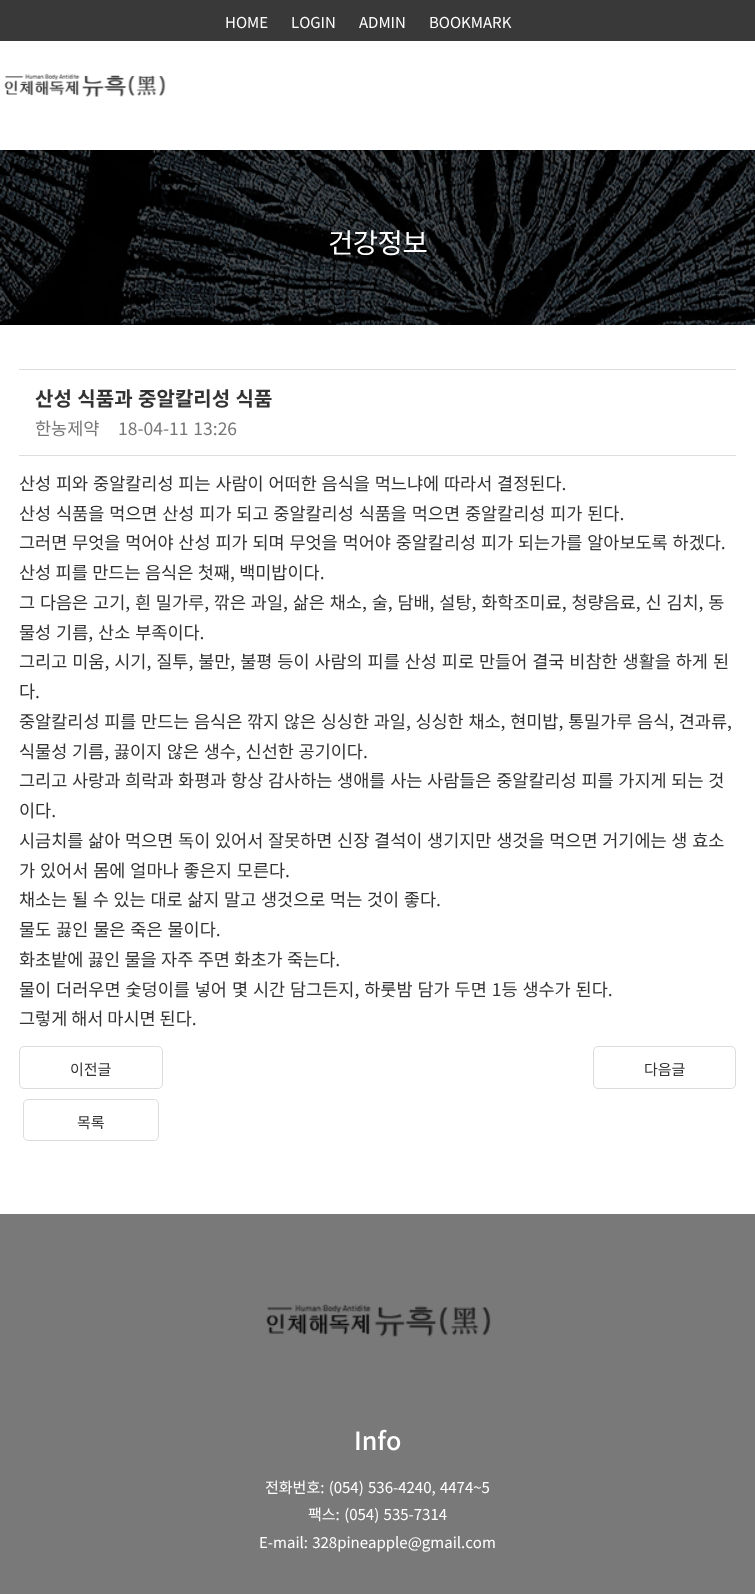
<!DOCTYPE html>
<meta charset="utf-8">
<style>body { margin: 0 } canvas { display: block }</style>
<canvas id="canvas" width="755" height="1594"></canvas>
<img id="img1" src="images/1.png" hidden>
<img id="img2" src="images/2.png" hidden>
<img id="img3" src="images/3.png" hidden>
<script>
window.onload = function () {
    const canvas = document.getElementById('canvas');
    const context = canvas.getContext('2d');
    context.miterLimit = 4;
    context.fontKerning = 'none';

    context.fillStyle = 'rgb(255, 255, 255)';
    context.fillRect(0, 0, 755, 1594);
    context.fillStyle = 'rgb(57, 57, 57)';
    context.fillRect(0, 0, 755, 41);
    context.drawImage(document.getElementById('img1'), 4, 73, 162, 24);
    context.drawImage(document.getElementById('img2'), 0, 150, 755, 175);
    context.fillStyle = 'rgb(221, 221, 221)';
    context.fillRect(19, 369, 717, 1);
    context.fillRect(19, 455, 717, 1);
    context.beginPath();
    context.roundRect(19.5, 1046.5, 143, 42, 4.5);
    context.strokeStyle = 'rgb(220, 220, 220)';
    context.stroke();
    context.beginPath();
    context.roundRect(593.5, 1046.5, 142, 42, 4.5);
    context.stroke();
    context.beginPath();
    context.roundRect(23.5, 1099.5, 135, 41, 4.5);
    context.stroke();
    context.fillStyle = 'rgb(121, 121, 121)';
    context.fillRect(0, 1214, 755, 380);
    context.drawImage(document.getElementById('img3'), 266, 1304, 225, 33);
    context.font = '15px Noto Sans KR';
    context.fillStyle = 'rgb(255, 255, 255)';
    context.fillText('HOME', 225, 28);
    context.fillText('LOGIN', 291, 28);
    context.fillText('ADMIN', 359, 28);
    context.fillText('BOOKMARK', 429, 28);
    context.letterSpacing = '-0.5px';
    context.font = '27.5px Noto Sans KR';
    context.fillText('건강정보', 328, 253);
    context.letterSpacing = '0px';
    context.wordSpacing = '1px';
    context.font = 'bold 20px Noto Sans KR';
    context.fillStyle = 'rgb(51, 51, 51)';
    context.fillText('산성 식품과 중알칼리성 식품', 35, 406);
    context.wordSpacing = '0px';
    context.font = '17.5px Noto Sans KR';
    context.fillStyle = 'rgb(119, 119, 119)';
    context.fillText('한농제약', 35, 435);
    context.wordSpacing = '1px';
    context.fillText('18-04-11 13:26', 118, 435);
    context.wordSpacing = '0.9px';
    context.fillStyle = 'rgb(51, 51, 51)';
    context.fillText('산성 피와 중알칼리성 피는 사람이 어떠한 음식을 먹느냐에 따라서 결정된다.', 19, 490);
    context.fillText('산성 식품을 먹으면 산성 피가 되고 중알칼리성 식품을 먹으면 중알칼리성 피가 된다.', 19, 520);
    context.fillText('그러면 무엇을 먹어야 산성 피가 되며 무엇을 먹어야 중알칼리성 피가 되는가를 알아보도록 하겠다.', 19, 549);
    context.wordSpacing = '0.5px';
    context.fillText('산성 피를 만드는 음식은 첫째, 백미밥이다.', 19, 579);
    context.wordSpacing = '0.9px';
    context.fillText('그 다음은 고기, 흰 밀가루, 깎은 과일, 삶은 채소, 술, 담배, 설탕, 화학조미료, 청량음료, 신 김치, 동', 19, 609);
    context.wordSpacing = '1px';
    context.fillText('물성 기름, 산소 부족이다.', 19, 639);
    context.fillText('그리고 미움, 시기, 질투, 불만, 불평 등이 사람의 피를 산성 피로 만들어 결국 비참한 생활을 하게 된', 19, 668);
    context.wordSpacing = '0px';
    context.fillText('다.', 19, 698);
    context.wordSpacing = '0.75px';
    context.fillText('중알칼리성 피를 만드는 음식은 깎지 않은 싱싱한 과일, 싱싱한 채소, 현미밥, 통밀가루 음식, 견과류,', 19, 728);
    context.wordSpacing = '0.8px';
    context.fillText('식물성 기름, 끓이지 않은 생수, 신선한 공기이다.', 19, 758);
    context.fillText('그리고 사랑과 희락과 화평과 항상 감사하는 생애를 사는 사람들은 중알칼리성 피를 가지게 되는 것', 19, 787);
    context.wordSpacing = '0px';
    context.fillText('이다.', 19, 817);
    context.wordSpacing = '0.8px';
    context.fillText('시금치를 삶아 먹으면 독이 있어서 잘못하면 신장 결석이 생기지만 생것을 먹으면 거기에는 생 효소', 19, 847);
    context.wordSpacing = '1px';
    context.fillText('가 있어서 몸에 얼마나 좋은지 모른다.', 19, 877);
    context.wordSpacing = '0.75px';
    context.fillText('채소는 될 수 있는 대로 삶지 말고 생것으로 먹는 것이 좋다.', 19, 906);
    context.wordSpacing = '1px';
    context.fillText('물도 끓인 물은 죽은 물이다.', 19, 936);
    context.wordSpacing = '0.5px';
    context.fillText('화초밭에 끓인 물을 자주 주면 화초가 죽는다.', 19, 966);
    context.wordSpacing = '1px';
    context.fillText('물이 더러우면 숯덩이를 넣어 몇 시간 담그든지, 하룻밤 담가 두면 1등 생수가 된다.', 19, 996);
    context.wordSpacing = '0px';
    context.fillText('그렇게 해서 마시면 된다.', 19, 1025);
    context.font = '15px Noto Sans KR';
    context.fillText('이전글', 70, 1075);
    context.fillText('다음글', 644, 1075);
    context.fillText('목록', 77, 1128);
    context.font = '500 25px Noto Sans KR';
    context.fillStyle = 'rgb(255, 255, 255)';
    context.fillText('Info', 354, 1450);
    context.wordSpacing = '0.9px';
    context.font = '15px Noto Sans KR';
    context.fillText('전화번호: (054) 536-4240, 4474~5', 265, 1493);
    context.wordSpacing = '1px';
    context.fillText('팩스: (054) 535-7314', 308, 1520);
    context.wordSpacing = '0.9px';
    context.fillText('E-mail: 328pineapple@gmail.com', 259, 1548);
};
</script>
